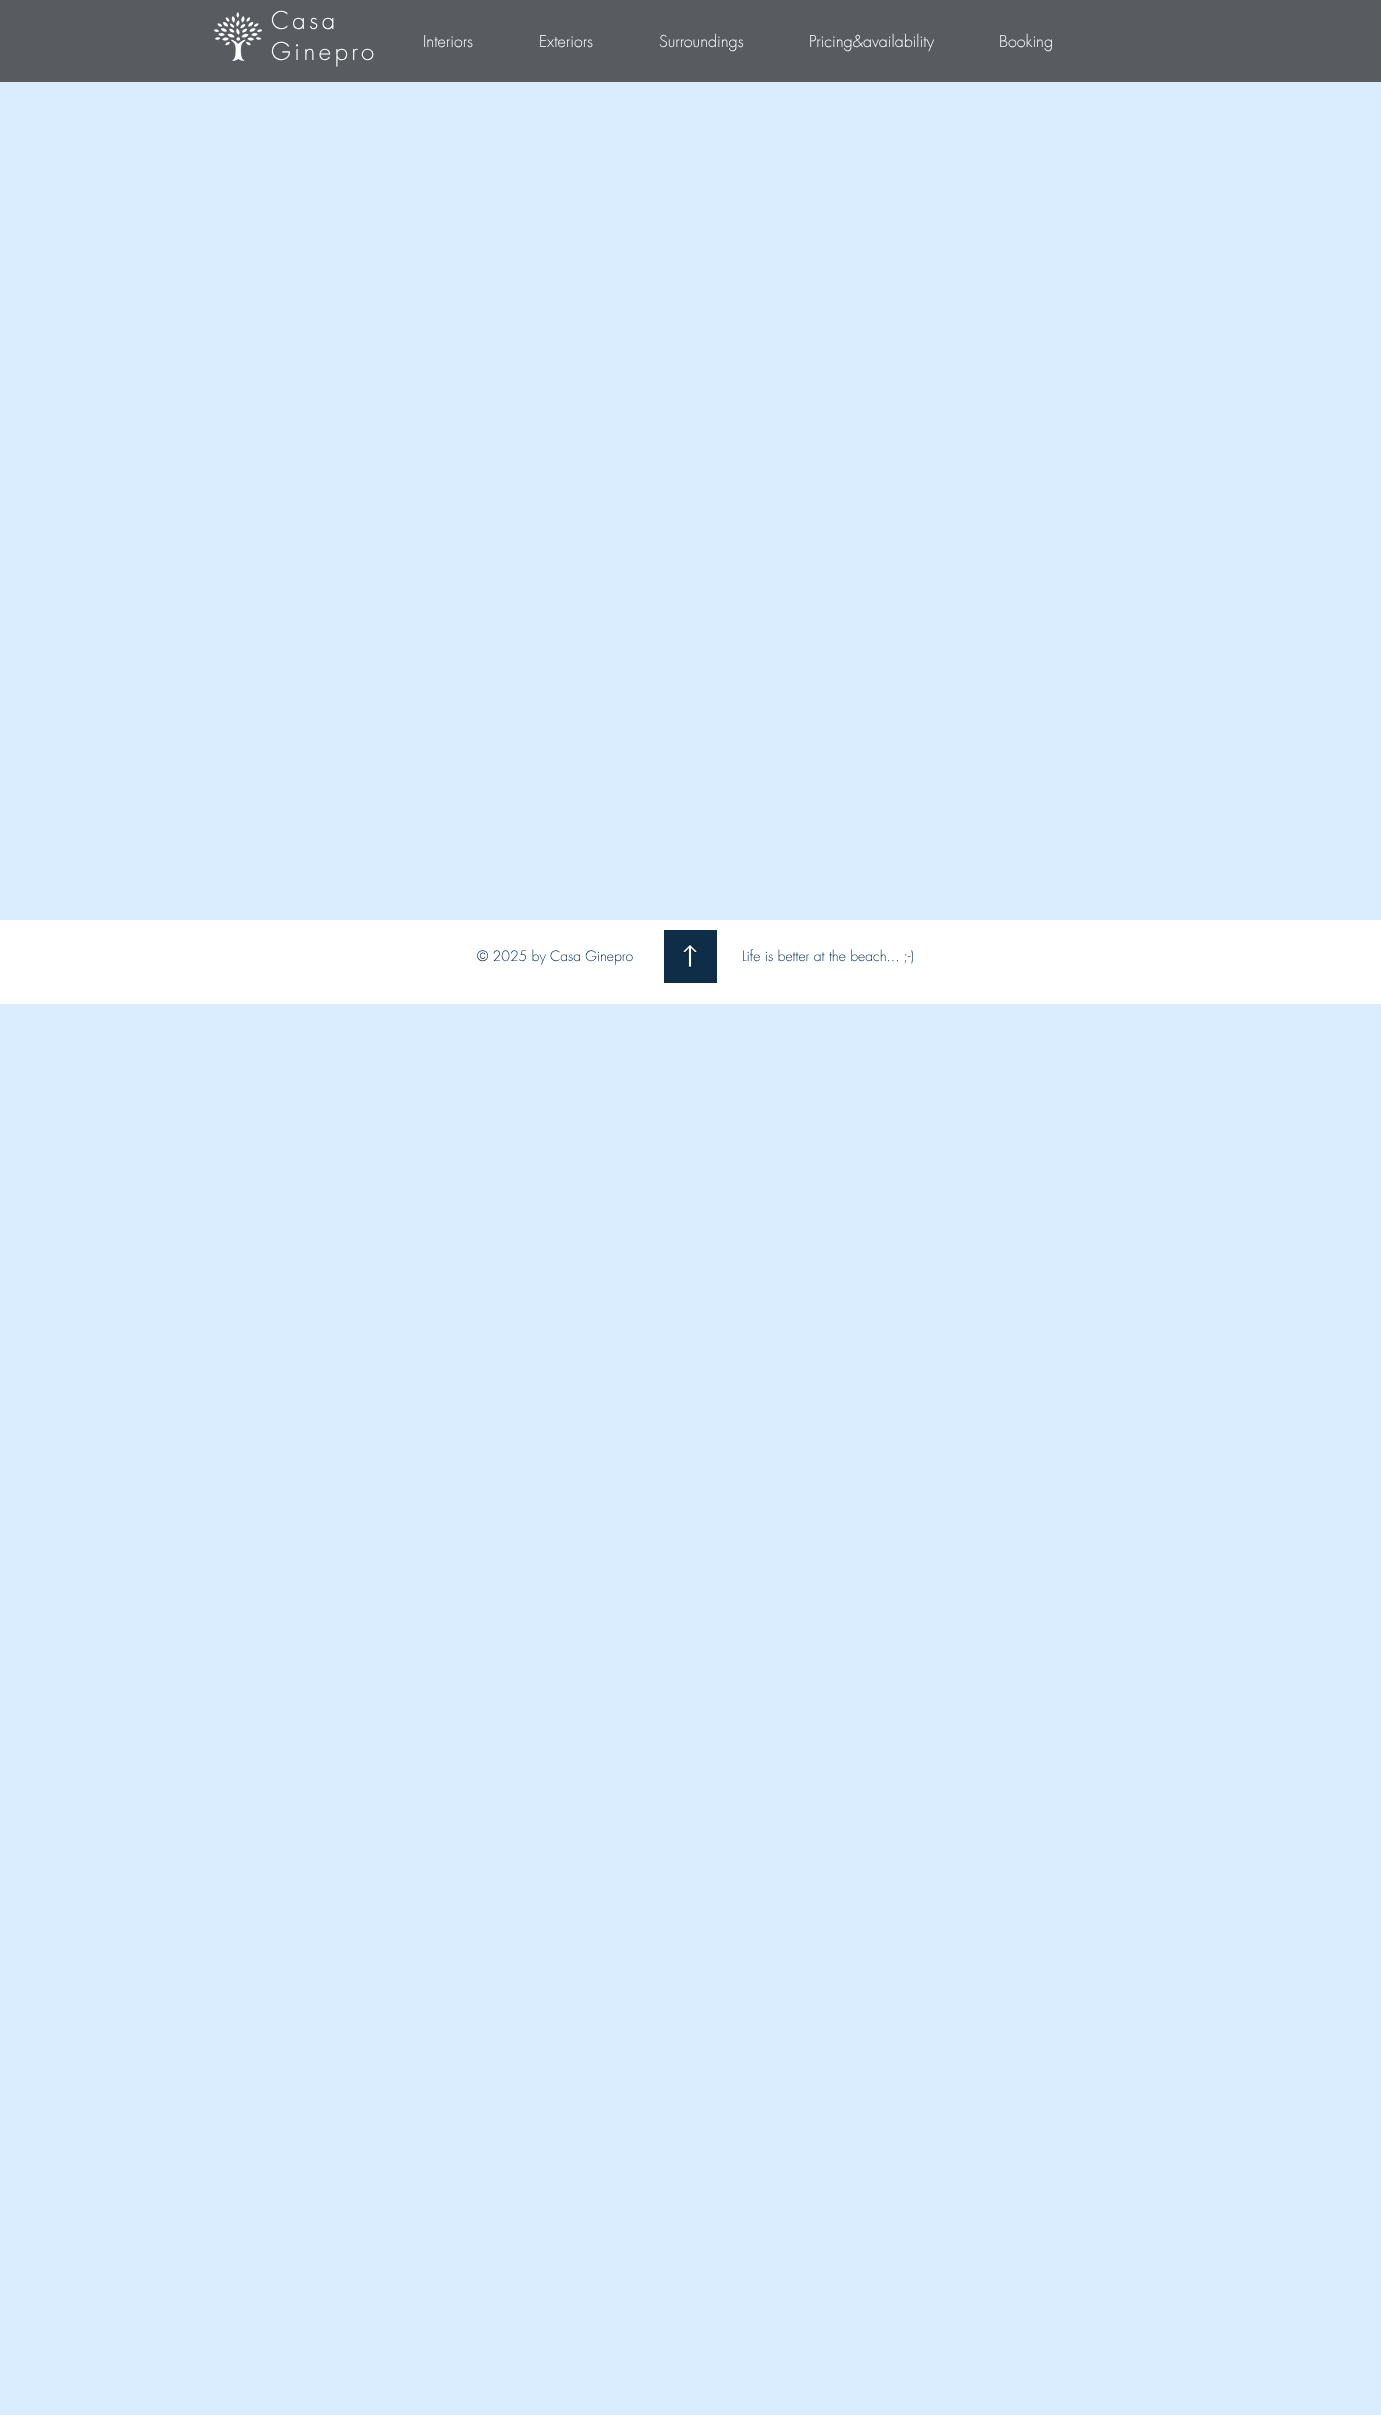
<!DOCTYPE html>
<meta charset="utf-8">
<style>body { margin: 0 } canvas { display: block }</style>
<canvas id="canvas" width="1381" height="2415"></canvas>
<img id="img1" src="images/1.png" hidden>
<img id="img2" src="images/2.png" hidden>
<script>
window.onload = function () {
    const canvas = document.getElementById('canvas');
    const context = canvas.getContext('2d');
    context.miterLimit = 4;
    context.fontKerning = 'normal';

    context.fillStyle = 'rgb(218, 237, 255)';
    context.fillRect(0, 0, 1381, 2415);
    context.fillStyle = 'rgb(88, 92, 96)';
    context.fillRect(0, 0, 1381, 82);
    context.drawImage(document.getElementById('img1'), 213, 12, 50, 49);
    context.fillStyle = 'rgb(255, 255, 255)';
    context.fillRect(0, 920, 1381, 84);
    context.drawImage(document.getElementById('img2'), 664, 930, 53, 53);
    context.letterSpacing = '3.5px';
    context.font = '300 24px futura';
    context.fillText('Casa', 271, 29);
    context.fillText('Ginepro', 271, 60);
    context.letterSpacing = '0px';
    context.font = '300 16px futura';
    context.fillText('Interiors', 423, 47);
    context.fillText('Exteriors', 539, 47);
    context.fillText('Surroundings', 659, 47);
    context.fillText('Pricing&availability', 809, 47);
    context.fillText('Booking', 999, 47);
    context.font = '300 14px futura';
    context.fillStyle = 'rgb(0, 46, 93)';
    context.fillText('© 2025 by Casa Ginepro', 477, 961);
    context.fillText('Life is better at the beach... ;-)', 742, 961);
};
</script>
